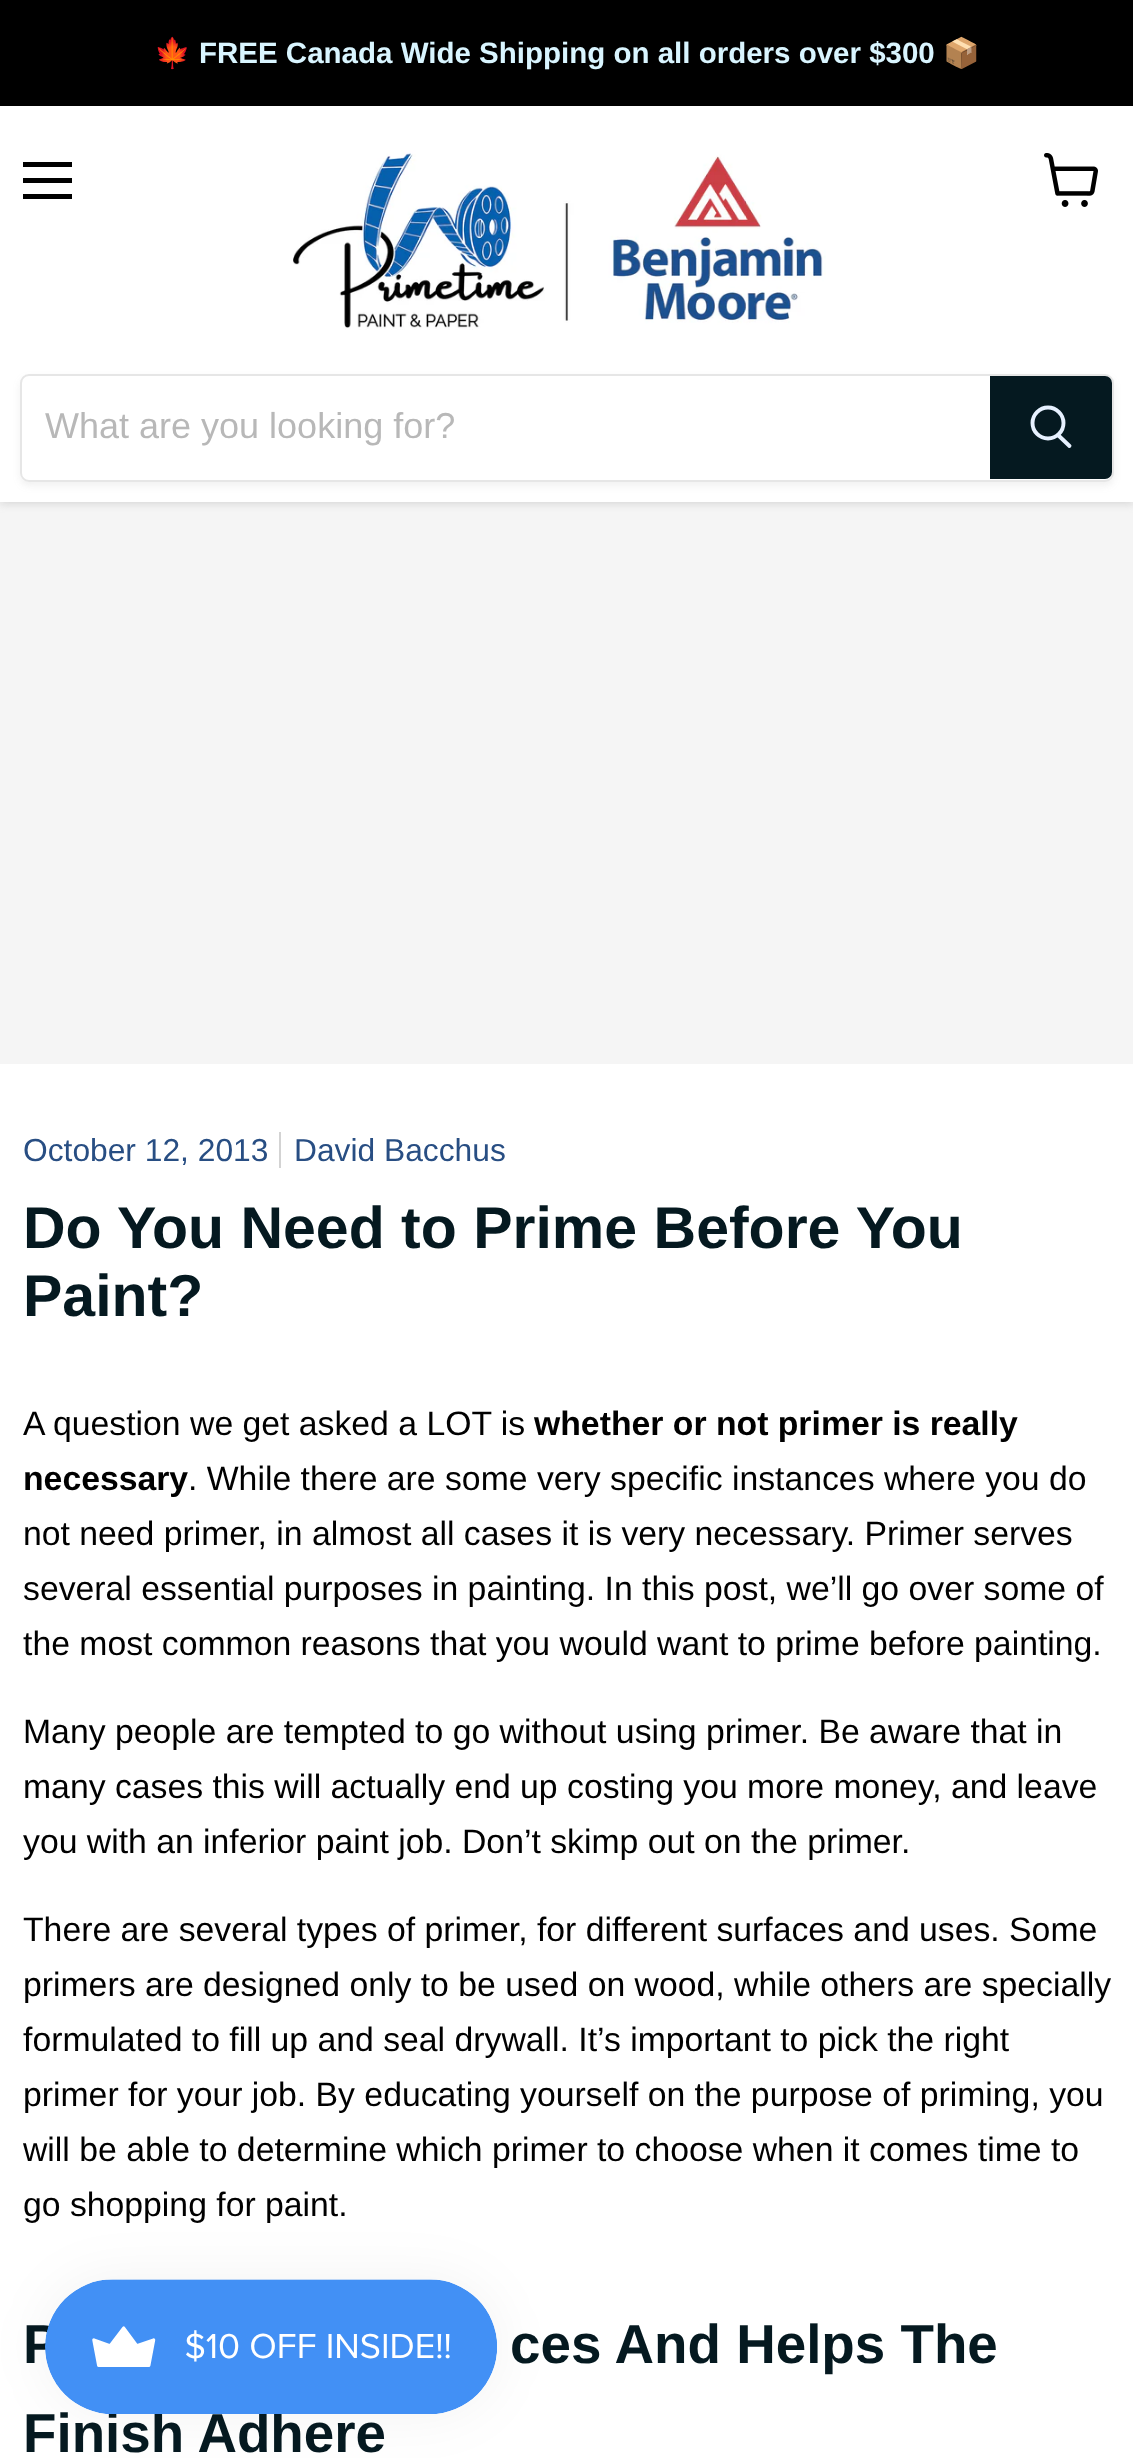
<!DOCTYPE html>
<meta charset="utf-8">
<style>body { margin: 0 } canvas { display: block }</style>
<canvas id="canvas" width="1133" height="2458"></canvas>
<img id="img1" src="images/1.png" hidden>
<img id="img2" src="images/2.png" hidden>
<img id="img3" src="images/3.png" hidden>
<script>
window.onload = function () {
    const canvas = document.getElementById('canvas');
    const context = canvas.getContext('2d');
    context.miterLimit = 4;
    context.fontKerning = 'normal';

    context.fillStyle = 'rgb(255, 255, 255)';
    context.fillRect(0, 0, 1133, 2458);
    context.fillStyle = 'rgb(245, 245, 245)';
    context.fillRect(0, 502, 1133, 562);
    context.fillStyle = 'rgba(128, 128, 128, 0.25)';
    context.filter = 'blur(4.5px)';
    context.beginPath();
    context.rect(0, 108, 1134, 396);
    context.fill();
    context.filter = 'none';
    context.fillStyle = 'rgb(0, 0, 0)';
    context.fillRect(0, 0, 1133, 106);
    context.fillStyle = 'rgb(255, 255, 255)';
    context.fillRect(0, 106, 1133, 396);
    context.fillStyle = 'rgb(0, 0, 0)';
    context.fillRect(23, 162, 49, 5);
    context.fillRect(23, 178, 49, 5);
    context.fillRect(23, 194, 49, 5);
    context.drawImage(document.getElementById('img1'), 1044, 153, 54, 54);
    context.drawImage(document.getElementById('img2'), 293, 150, 533, 180);
    context.save();
    context.beginPath();
    context.moveTo(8, 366);
    context.lineTo(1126, 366);
    context.lineTo(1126, 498);
    context.lineTo(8, 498);
    context.closePath();
    context.moveTo(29, 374);
    context.lineTo(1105, 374);
    context.bezierCurveTo(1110, 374, 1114, 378, 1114, 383);
    context.lineTo(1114, 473);
    context.bezierCurveTo(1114, 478, 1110, 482, 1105, 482);
    context.lineTo(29, 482);
    context.bezierCurveTo(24, 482, 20, 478, 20, 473);
    context.lineTo(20, 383);
    context.bezierCurveTo(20, 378, 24, 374, 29, 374);
    context.closePath();
    context.clip('evenodd');
    context.fillStyle = 'rgba(128, 128, 128, 0.11)';
    context.filter = 'blur(3.5px)';
    context.beginPath();
    context.roundRect(20, 378, 1094, 108, 9);
    context.fill();
    context.filter = 'none';
    context.restore();
    context.beginPath();
    context.roundRect(21, 375, 1092, 106, 8);
    context.strokeStyle = 'rgba(128, 128, 128, 0.2)';
    context.lineWidth = 2;
    context.stroke();
    context.fillStyle = 'rgb(5, 25, 32)';
    context.beginPath();
    context.roundRect(991, 377, 120, 101, [0, 6, 6, 0]);
    context.fill();
    context.strokeStyle = 'rgb(5, 25, 32)';
    context.stroke();
    context.beginPath();
    context.moveTo(1069.5, 446);
    context.lineTo(1058.5, 435.5);
    context.strokeStyle = 'rgb(231, 241, 255)';
    context.lineWidth = 3.9;
    context.lineCap = 'round';
    context.stroke();
    context.beginPath();
    context.arc(1048, 423, 15.5, 0, 2 * Math.PI);
    context.stroke();
    context.fillStyle = 'rgb(211, 211, 211)';
    context.fillRect(279, 1132, 2, 36);
    context.fillStyle = 'rgba(0, 0, 0, 0.05)';
    context.filter = 'blur(28px)';
    context.beginPath();
    context.roundRect(45, 2279, 452, 135, 67.5);
    context.fill();
    context.filter = 'none';
    context.font = 'bold 29.5px Noto Color Emoji';
    context.fillStyle = 'rgb(217, 245, 255)';
    context.fillText('🍁', 154, 63);
    context.font = 'bold 29.5px Liberation Sans';
    context.fillText('FREE Canada Wide Shipping on all orders over $300', 199, 63);
    context.font = 'bold 29.5px Noto Color Emoji';
    context.fillText('📦', 943, 63);
    context.font = '36px Liberation Sans';
    context.fillStyle = 'rgb(184, 184, 184)';
    context.fillText('What are you looking for?', 45, 438);
    context.font = '31.75px Liberation Sans';
    context.fillStyle = 'rgb(40, 78, 131)';
    context.fillText('October 12, 2013', 23, 1161);
    context.fillText('David Bacchus', 294, 1161);
    context.font = 'bold 59px Liberation Sans';
    context.fillStyle = 'rgb(5, 25, 32)';
    context.fillText('Do You Need to Prime Before You', 23, 1248);
    context.fillText('Paint?', 23, 1316);
    context.font = '33.75px Liberation Sans';
    context.fillStyle = 'rgb(0, 0, 0)';
    context.fillText('A question we get asked a LOT is', 23, 1435);
    context.font = 'bold 33.75px Liberation Sans';
    context.fillText('whether or not primer is really', 534, 1435);
    context.fillText('necessary', 23, 1490);
    context.font = '33.75px Liberation Sans';
    context.fillText('. While there are some very specific instances where you do', 188, 1490);
    context.fillText('not need primer, in almost all cases it is very necessary. Primer serves', 23, 1545);
    context.fillText('several essential purposes in painting. In this post, we’ll go over some of', 23, 1600);
    context.fillText('the most common reasons that you would want to prime before painting.', 23, 1655);
    context.fillText('Many people are tempted to go without using primer. Be aware that in', 23, 1743);
    context.fillText('many cases this will actually end up costing you more money, and leave', 23, 1798);
    context.fillText('you with an inferior paint job. Don’t skimp out on the primer.', 23, 1853);
    context.fillText('There are several types of primer, for different surfaces and uses. Some', 23, 1941);
    context.fillText('primers are designed only to be used on wood, while others are specially', 23, 1996);
    context.fillText('formulated to fill up and seal drywall. It’s important to pick the right', 23, 2051);
    context.fillText('primer for your job. By educating yourself on the purpose of priming, you', 23, 2106);
    context.fillText('will be able to determine which primer to choose when it comes time to', 23, 2161);
    context.fillText('go shopping for paint.', 23, 2216);
    context.font = 'bold 54.75px Liberation Sans';
    context.fillStyle = 'rgb(5, 25, 32)';
    context.fillText('P', 23, 2363);
    context.fillText('ces And Helps The', 510, 2363);
    context.fillText('Finish Adhere', 23, 2452);
    context.drawImage(document.getElementById('img3'), 45, 2279, 452, 135);
};
</script>
